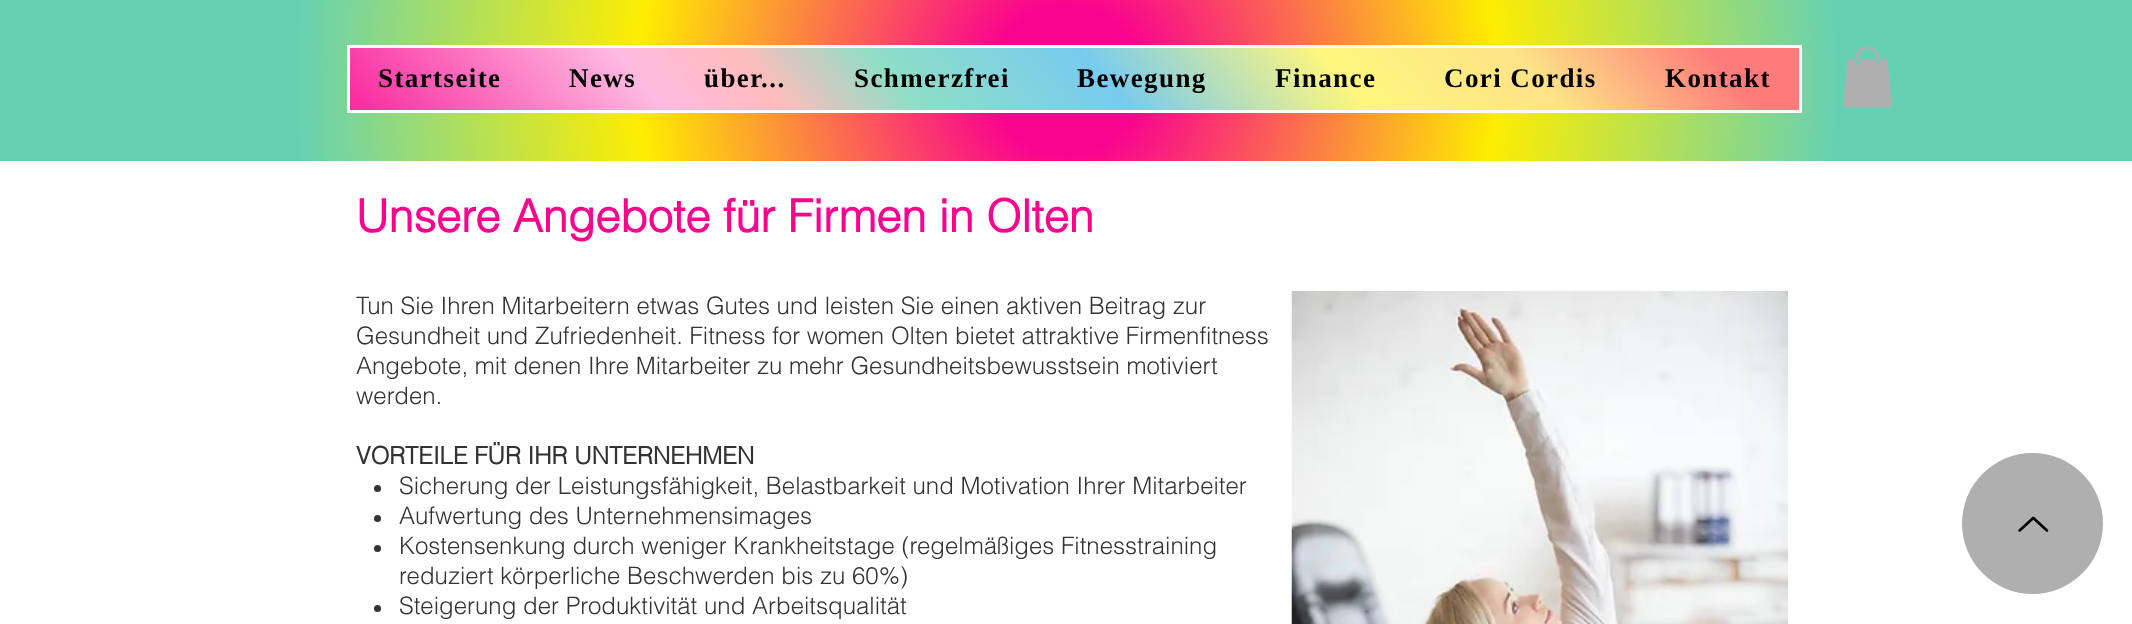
<!DOCTYPE html>
<meta charset="utf-8">
<style>body { margin: 0 } canvas { display: block }</style>
<canvas id="canvas" width="2132" height="624"></canvas>
<img id="img1" src="images/1.png" hidden>
<img id="img2" src="images/2.png" hidden>
<img id="img3" src="images/3.png" hidden>
<script>
window.onload = function () {
    const canvas = document.getElementById('canvas');
    const context = canvas.getContext('2d');
    context.miterLimit = 4;
    context.fontKerning = 'normal';
    let gradient;

    context.fillStyle = 'rgb(255, 255, 255)';
    context.fillRect(0, 0, 2132, 624);
    gradient = context.createRadialGradient(1067, 80, 0, 1067, 80, 1070);
    gradient.addColorStop(0.07, 'rgb(249, 4, 142)');
    gradient.addColorStop(0.4, 'rgb(254, 237, 1)');
    gradient.addColorStop(0.72, 'rgb(102, 209, 178)');
    context.fillStyle = gradient;
    context.fillRect(0, 0, 2132, 161);
    gradient = context.createLinearGradient(1514, -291, 634, 448);
    gradient.addColorStop(0.06, 'rgb(255, 123, 123)');
    gradient.addColorStop(0.19, 'rgb(252, 227, 135)');
    gradient.addColorStop(0.32, 'rgb(255, 246, 126)');
    gradient.addColorStop(0.48, 'rgb(120, 203, 239)');
    gradient.addColorStop(0.62, 'rgb(143, 222, 199)');
    gradient.addColorStop(0.71, 'rgb(255, 188, 188)');
    gradient.addColorStop(0.79, 'rgb(254, 187, 225)');
    gradient.addColorStop(0.99, 'rgb(250, 47, 161)');
    context.fillStyle = gradient;
    context.fillRect(350, 48, 1449, 62);
    context.strokeStyle = 'rgb(255, 255, 255)';
    context.lineWidth = 3;
    context.strokeRect(348.5, 46.5, 1452, 65);
    context.drawImage(document.getElementById('img1'), 1843, 46, 49, 62);
    context.fillStyle = 'rgb(51, 51, 51)';
    context.beginPath();
    context.arc(377.5, 488.5, 3.5, 0, 2 * Math.PI);
    context.fill();
    context.beginPath();
    context.arc(377.5, 518.5, 3.5, 0, 2 * Math.PI);
    context.fill();
    context.beginPath();
    context.arc(377.5, 548.5, 3.5, 0, 2 * Math.PI);
    context.fill();
    context.beginPath();
    context.arc(377.5, 608.5, 3.5, 0, 2 * Math.PI);
    context.fill();
    context.drawImage(document.getElementById('img2'), 1291, 291, 497, 333);
    context.fillStyle = 'rgb(175, 175, 175)';
    context.beginPath();
    context.arc(2032.5, 523.5, 70.5, 0, 2 * Math.PI);
    context.fill();
    context.drawImage(document.getElementById('img3'), 2018, 516, 31, 16);
    context.letterSpacing = '1.4px';
    context.font = 'bold 27px Liberation Serif';
    context.fillStyle = 'rgb(0, 0, 0)';
    context.fillText('Startseite', 378, 87);
    context.fillText('News', 569, 87);
    context.fillText('über...', 704, 87);
    context.fillText('Schmerzfrei', 854, 87);
    context.fillText('Bewegung', 1077, 87);
    context.fillText('Finance', 1275, 87);
    context.fillText('Cori Cordis', 1444, 87);
    context.fillText('Kontakt', 1665, 87);
    context.letterSpacing = '0px';
    context.font = 'bold 45px helvetica';
    context.fillStyle = 'rgb(249, 4, 142)';
    context.fillText('Unsere Angebote für Firmen in Olten', 356, 232);
    context.font = '300 24px helvetica';
    context.fillStyle = 'rgb(51, 51, 51)';
    context.fillText('Tun Sie Ihren Mitarbeitern etwas Gutes und leisten Sie einen aktiven Beitrag zur', 356, 314);
    context.fillText('Gesundheit und Zufriedenheit. Fitness for women Olten bietet attraktive Firmenfitness', 356, 344);
    context.fillText('Angebote, mit denen Ihre Mitarbeiter zu mehr Gesundheitsbewusstsein motiviert', 356, 374);
    context.fillText('werden.', 356, 404);
    context.font = 'bold 24px helvetica';
    context.fillText('VORTEILE FÜR IHR UNTERNEHMEN', 356, 464);
    context.font = '300 24px helvetica';
    context.fillText('Sicherung der Leistungsfähigkeit, Belastbarkeit und Motivation Ihrer Mitarbeiter', 399, 494);
    context.fillText('Aufwertung des Unternehmensimages', 399, 524);
    context.fillText('Kostensenkung durch weniger Krankheitstage (regelmäßiges Fitnesstraining', 399, 554);
    context.fillText('reduziert körperliche Beschwerden bis zu 60%)', 399, 584);
    context.fillText('Steigerung der Produktivität und Arbeitsqualität', 399, 614);
};
</script>
